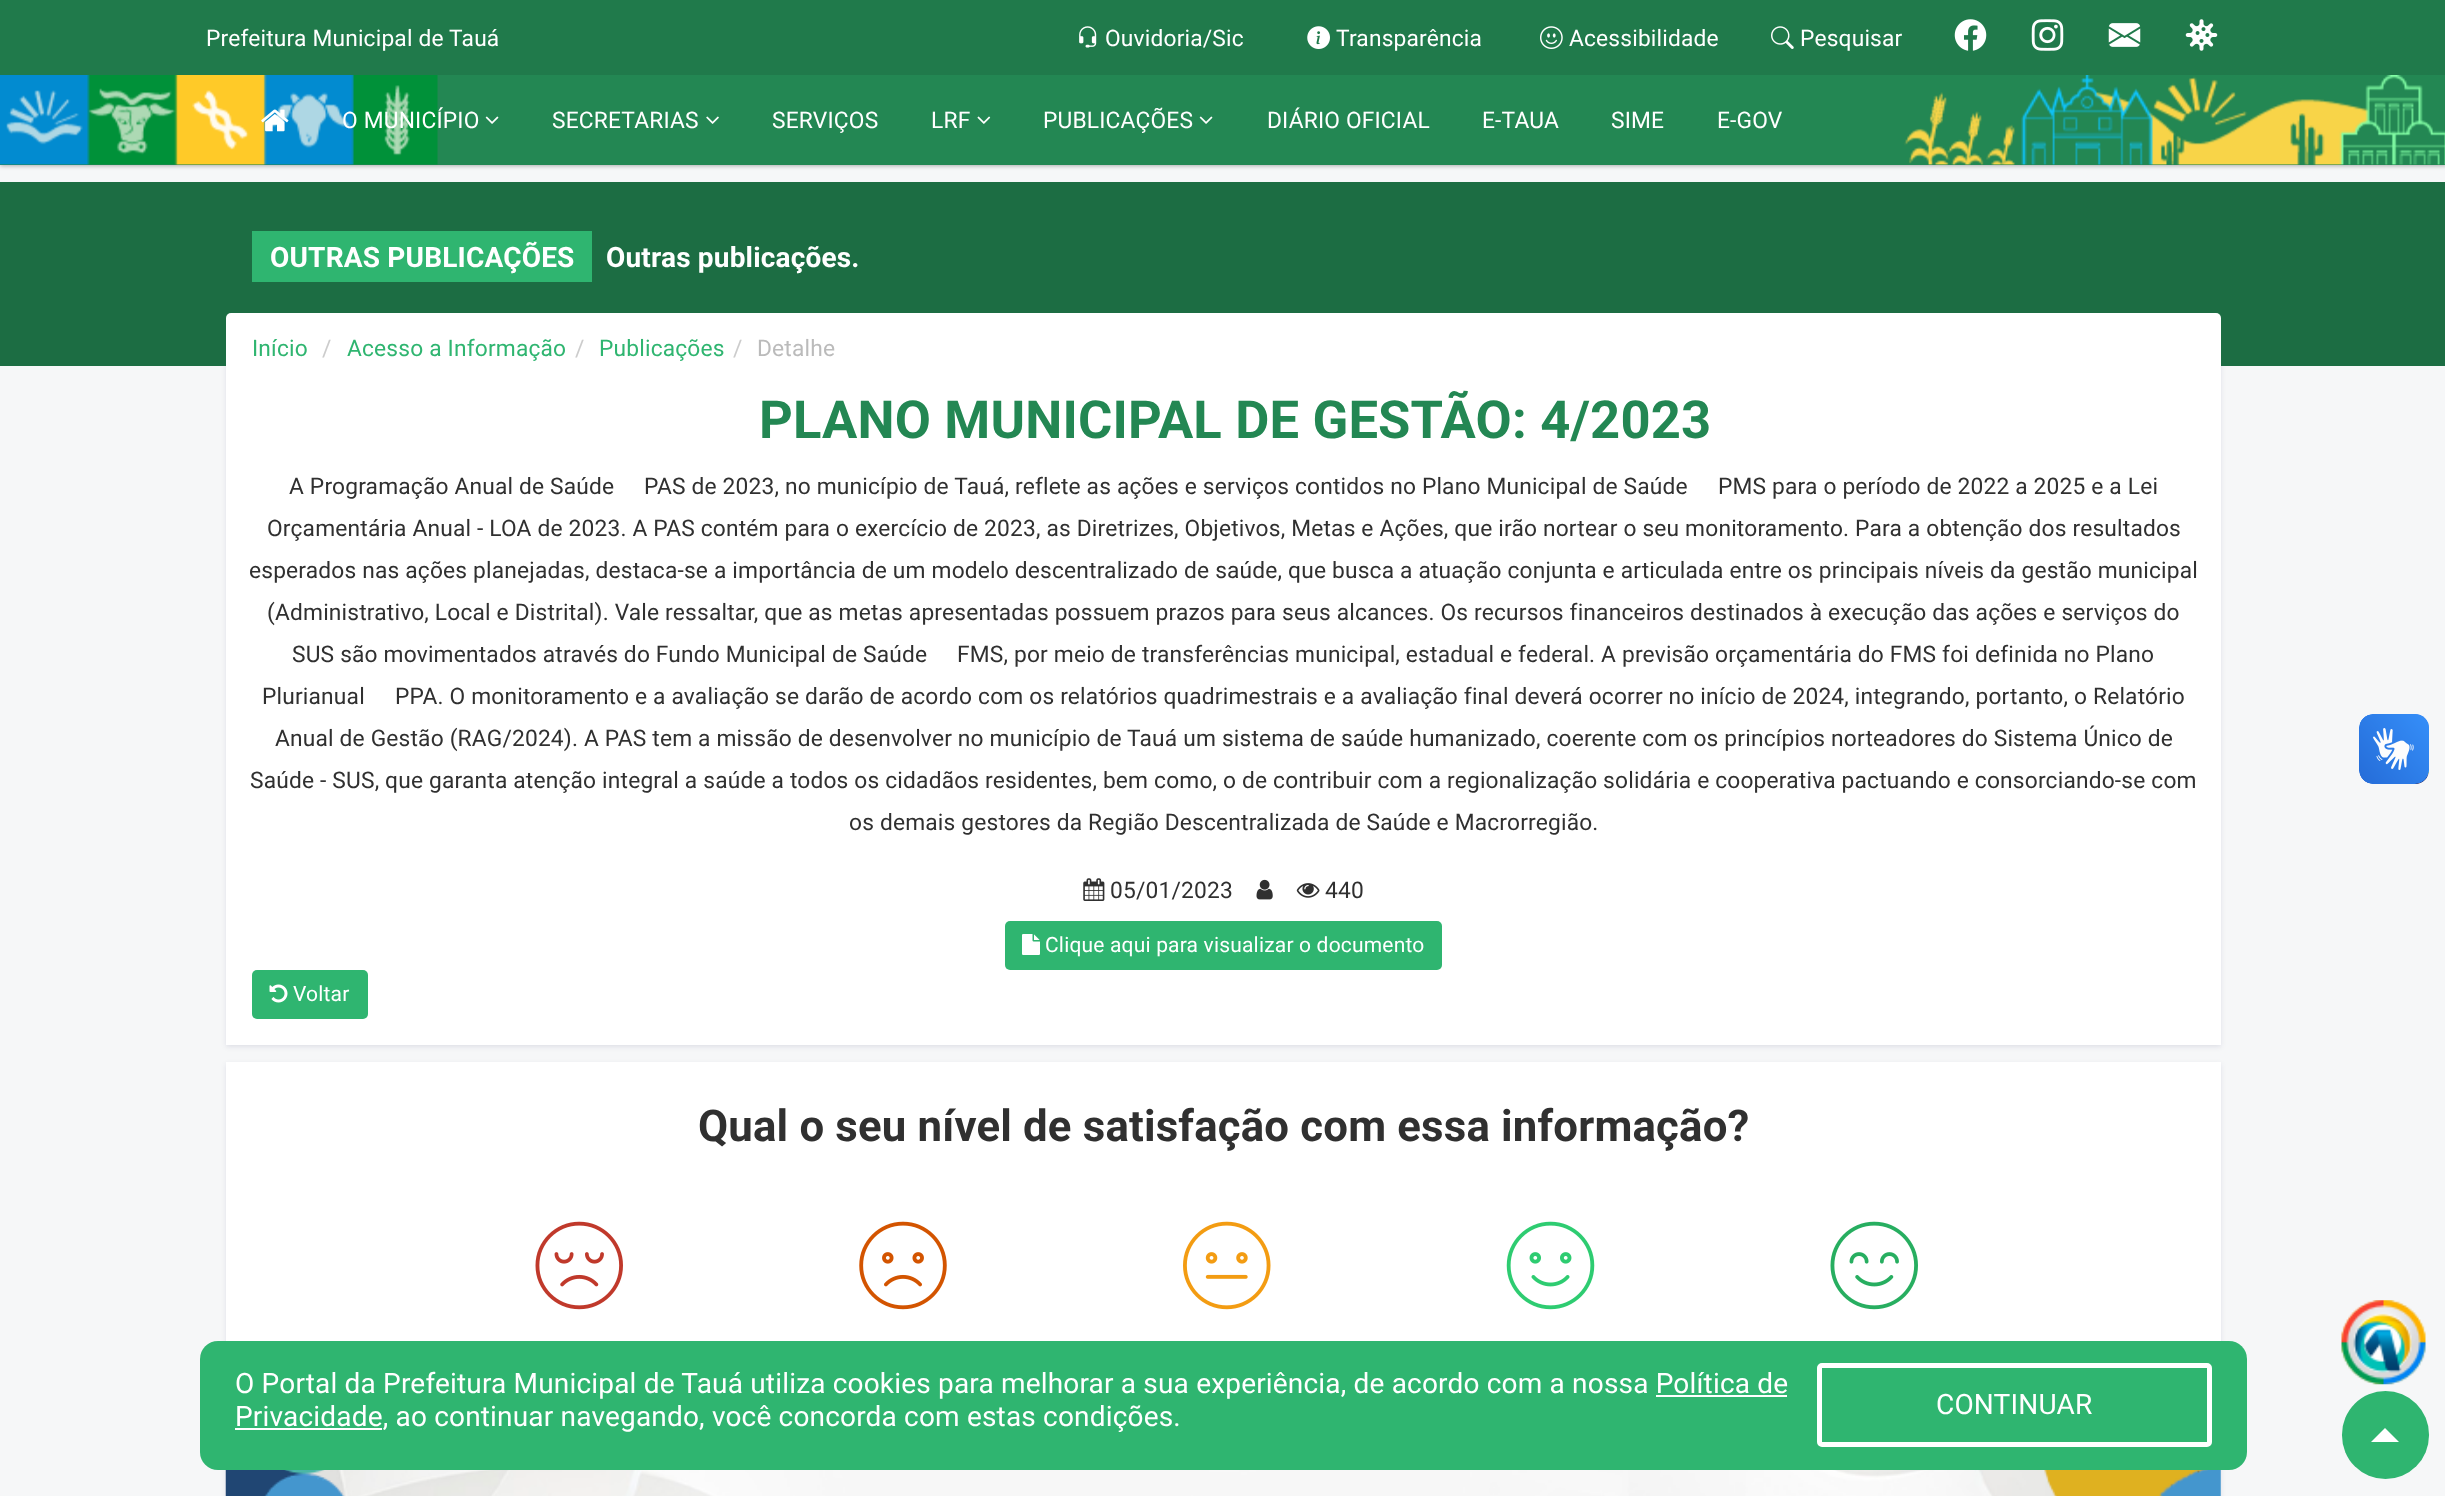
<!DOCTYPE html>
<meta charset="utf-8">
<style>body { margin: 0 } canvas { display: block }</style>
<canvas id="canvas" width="2445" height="1496"></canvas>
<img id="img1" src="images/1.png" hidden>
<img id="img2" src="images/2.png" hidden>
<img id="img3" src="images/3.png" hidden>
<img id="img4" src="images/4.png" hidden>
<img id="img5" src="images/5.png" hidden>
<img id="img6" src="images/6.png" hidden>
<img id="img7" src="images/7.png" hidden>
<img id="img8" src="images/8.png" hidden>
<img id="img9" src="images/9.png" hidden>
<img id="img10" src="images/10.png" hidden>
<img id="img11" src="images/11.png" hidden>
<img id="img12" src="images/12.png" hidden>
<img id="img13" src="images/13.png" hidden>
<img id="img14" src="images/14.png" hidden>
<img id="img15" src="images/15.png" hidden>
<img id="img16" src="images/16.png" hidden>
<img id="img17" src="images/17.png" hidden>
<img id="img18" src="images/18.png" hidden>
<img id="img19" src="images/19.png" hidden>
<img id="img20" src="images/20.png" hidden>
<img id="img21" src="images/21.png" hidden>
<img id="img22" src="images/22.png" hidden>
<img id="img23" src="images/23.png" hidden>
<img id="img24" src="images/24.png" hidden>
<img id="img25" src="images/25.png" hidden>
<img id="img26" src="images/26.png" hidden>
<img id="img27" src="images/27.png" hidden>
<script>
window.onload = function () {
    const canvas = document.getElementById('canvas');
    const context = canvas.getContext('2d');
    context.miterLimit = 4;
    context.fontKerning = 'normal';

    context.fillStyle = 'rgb(246, 247, 248)';
    context.fillRect(0, 0, 2445, 1496);
    context.fillStyle = 'rgba(0, 0, 0, 0.3)';
    context.filter = 'blur(2px)';
    context.beginPath();
    context.rect(0, 2, 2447, 164);
    context.fill();
    context.filter = 'none';
    context.fillStyle = 'rgb(32, 122, 75)';
    context.fillRect(0, 0, 2445, 75);
    context.drawImage(document.getElementById('img1'), 1079, 26, 18, 22);
    context.drawImage(document.getElementById('img2'), 1307, 26, 23, 23);
    context.drawImage(document.getElementById('img3'), 1540, 26, 23, 23);
    context.drawImage(document.getElementById('img4'), 1771, 26, 23, 23);
    context.drawImage(document.getElementById('img5'), 1954, 19, 33, 32);
    context.drawImage(document.getElementById('img6'), 2031, 19, 33, 32);
    context.drawImage(document.getElementById('img7'), 2108, 23, 33, 24);
    context.drawImage(document.getElementById('img8'), 2185, 19, 33, 32);
    context.fillStyle = 'rgb(35, 135, 83)';
    context.fillRect(0, 75, 2445, 90);
    context.drawImage(document.getElementById('img9'), 0, 75, 2445, 90);
    context.drawImage(document.getElementById('img10'), 261, 109, 28, 23);
    context.drawImage(document.getElementById('img11'), 485, 116, 14, 8);
    context.drawImage(document.getElementById('img12'), 706, 116, 13, 8);
    context.drawImage(document.getElementById('img13'), 977, 116, 14, 8);
    context.drawImage(document.getElementById('img11'), 1199, 116, 14, 8);
    context.fillStyle = 'rgba(3, 0, 71, 0.09)';
    context.filter = 'blur(2.5px)';
    context.beginPath();
    context.rect(226, 315, 1995, 732);
    context.fill();
    context.filter = 'none';
    context.fillStyle = 'rgb(28, 109, 67)';
    context.fillRect(0, 182, 2445, 184);
    context.fillStyle = 'rgb(47, 181, 112)';
    context.fillRect(252, 231, 340, 51);
    context.fillStyle = 'rgb(255, 255, 255)';
    context.fillRect(226, 378, 1995, 667);
    context.beginPath();
    context.roundRect(226, 313, 1995, 70, 5);
    context.fill();
    context.drawImage(document.getElementById('img14'), 1083, 878, 22, 23);
    context.drawImage(document.getElementById('img15'), 1256, 879, 17, 21);
    context.drawImage(document.getElementById('img16'), 1296, 883, 24, 15);
    context.fillStyle = 'rgb(47, 181, 112)';
    context.beginPath();
    context.roundRect(1005, 921, 437, 49, 5);
    context.fill();
    context.drawImage(document.getElementById('img17'), 1022, 934, 18, 21);
    context.beginPath();
    context.roundRect(252, 970, 116, 49, 5);
    context.fill();
    context.drawImage(document.getElementById('img18'), 269, 984, 19, 19);
    context.drawImage(document.getElementById('img19'), 2359, 714, 70, 70);
    context.drawImage(document.getElementById('img20'), 2359, 714, 70, 70);
    context.fillStyle = 'rgba(3, 0, 71, 0.09)';
    context.filter = 'blur(2.5px)';
    context.beginPath();
    context.rect(226, 1064, 1995, 382);
    context.fill();
    context.filter = 'none';
    context.fillStyle = 'rgb(255, 255, 255)';
    context.fillRect(226, 1062, 1995, 279);
    context.drawImage(document.getElementById('img21'), 535, 1221, 88, 89);
    context.drawImage(document.getElementById('img22'), 859, 1221, 88, 89);
    context.drawImage(document.getElementById('img23'), 1183, 1221, 88, 89);
    context.drawImage(document.getElementById('img24'), 1506, 1221, 89, 89);
    context.drawImage(document.getElementById('img25'), 1830, 1221, 88, 89);
    context.drawImage(document.getElementById('img26'), 2341, 1300, 85, 85);
    context.fillStyle = 'rgba(3, 0, 71, 0.09)';
    context.filter = 'blur(2.5px)';
    context.beginPath();
    context.rect(226, 1463, 1995, 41);
    context.fill();
    context.filter = 'none';
    context.fillStyle = 'rgb(47, 181, 112)';
    context.beginPath();
    context.roundRect(200, 1341, 2047, 129, 18);
    context.fill();
    context.fillStyle = 'rgb(255, 255, 255)';
    context.fillRect(1656, 1395, 131, 2);
    context.fillRect(235, 1428, 147, 2);
    context.beginPath();
    context.roundRect(1819.5, 1365.5, 390, 79, 2.5);
    context.strokeStyle = 'rgb(255, 255, 255)';
    context.lineWidth = 5;
    context.stroke();
    context.fillStyle = 'rgb(47, 181, 112)';
    context.beginPath();
    context.roundRect(2342, 1391, 87, 88, 43.5);
    context.fill();
    context.fillStyle = 'rgb(255, 255, 255)';
    context.beginPath();
    context.moveTo(2399, 1442);
    context.lineTo(2371, 1442);
    context.lineTo(2385, 1428);
    context.closePath();
    context.fill();
    context.drawImage(document.getElementById('img27'), 225, 1470, 1996, 26);
    context.letterSpacing = '0.18px';
    context.font = '22.75px Roboto';
    context.fillText('Prefeitura Municipal de Tauá', 206, 46);
    context.fillText('Ouvidoria/Sic', 1105, 46);
    context.fillText('Transparência', 1336, 46);
    context.fillText('Acessibilidade', 1569, 46);
    context.fillText('Pesquisar', 1800, 46);
    context.fillText('O MUNICÍPIO', 342, 128);
    context.fillText('SECRETARIAS', 552, 128);
    context.fillText('SERVIÇOS', 772, 128);
    context.fillText('LRF', 931, 128);
    context.fillText('PUBLICAÇÕES', 1043, 128);
    context.fillText('DIÁRIO OFICIAL', 1267, 128);
    context.fillText('E-TAUA', 1482, 128);
    context.fillText('SIME', 1611, 128);
    context.fillText('E-GOV', 1717, 128);
    context.font = 'bold 28px Roboto';
    context.fillText('OUTRAS PUBLICAÇÕES', 270, 267);
    context.fillText('Outras publicações.', 606, 267);
    context.font = '22.75px Roboto';
    context.fillStyle = 'rgb(47, 181, 112)';
    context.fillText('Início', 252, 356);
    context.fillStyle = 'rgb(204, 204, 204)';
    context.fillText('/', 322, 356);
    context.fillStyle = 'rgb(47, 181, 112)';
    context.fillText('Acesso a Informação', 347, 356);
    context.fillStyle = 'rgb(204, 204, 204)';
    context.fillText('/', 575, 356);
    context.fillStyle = 'rgb(47, 181, 112)';
    context.fillText('Publicações', 599, 356);
    context.fillStyle = 'rgb(204, 204, 204)';
    context.fillText('/', 733, 356);
    context.fillStyle = 'rgb(187, 187, 187)';
    context.fillText('Detalhe', 757, 356);
    context.font = 'bold 52.5px Roboto';
    context.fillStyle = 'rgb(35, 135, 83)';
    context.fillText('PLANO MUNICIPAL DE GESTÃO: 4/2023', 759, 438);
    context.font = '22.75px Roboto';
    context.fillStyle = 'rgb(48, 48, 48)';
    context.fillText('A Programação Anual de Saúde', 289, 494);
    context.fillText('PAS de 2023, no município de Tauá, reflete as ações e serviços contidos no Plano Municipal de Saúde', 644, 494);
    context.fillText('PMS para o período de 2022 a 2025 e a Lei', 1718, 494);
    context.fillText('Orçamentária Anual - LOA de 2023. A PAS contém para o exercício de 2023, as Diretrizes, Objetivos, Metas e Ações, que irão nortear o seu monitoramento. Para a obtenção dos resultados', 267, 536);
    context.fillText('esperados nas ações planejadas, destaca-se a importância de um modelo descentralizado de saúde, que busca a atuação conjunta e articulada entre os principais níveis da gestão municipal', 249, 578);
    context.fillText('(Administrativo, Local e Distrital). Vale ressaltar, que as metas apresentadas possuem prazos para seus alcances. Os recursos financeiros destinados à execução das ações e serviços do', 267, 620);
    context.fillText('SUS são movimentados através do Fundo Municipal de Saúde', 292, 662);
    context.fillText('FMS, por meio de transferências municipal, estadual e federal. A previsão orçamentária do FMS foi definida no Plano', 957, 662);
    context.fillText('Plurianual', 262, 704);
    context.fillText('PPA. O monitoramento e a avaliação se darão de acordo com os relatórios quadrimestrais e a avaliação final deverá ocorrer no início de 2024, integrando, portanto, o Relatório', 395, 704);
    context.fillText('Anual de Gestão (RAG/2024). A PAS tem a missão de desenvolver no município de Tauá um sistema de saúde humanizado, coerente com os princípios norteadores do Sistema Único de', 275, 746);
    context.fillText('Saúde - SUS, que garanta atenção integral a saúde a todos os cidadãos residentes, bem como, o de contribuir com a regionalização solidária e cooperativa pactuando e consorciando-se com', 250, 788);
    context.fillText('os demais gestores da Região Descentralizada de Saúde e Macrorregião.', 849, 830);
    context.fillText('05/01/2023', 1110, 898);
    context.fillText('440', 1325, 898);
    context.font = '21px Roboto';
    context.fillStyle = 'rgb(255, 255, 255)';
    context.fillText('Clique aqui para visualizar o documento', 1045, 952);
    context.fillText('Voltar', 293, 1001);
    context.font = 'bold 43.75px Roboto';
    context.fillStyle = 'rgb(48, 48, 48)';
    context.fillText('Qual o seu nível de satisfação com essa informação?', 698, 1141);
    context.font = '28px Roboto';
    context.fillStyle = 'rgb(255, 255, 255)';
    context.fillText('O Portal da Prefeitura Municipal de Tauá utiliza cookies para melhorar a sua experiência, de acordo com a nossa Política de', 235, 1393);
    context.fillText('Privacidade, ao continuar navegando, você concorda com estas condições.', 235, 1426);
    context.fillText('CONTINUAR', 1936, 1414);
};
</script>
